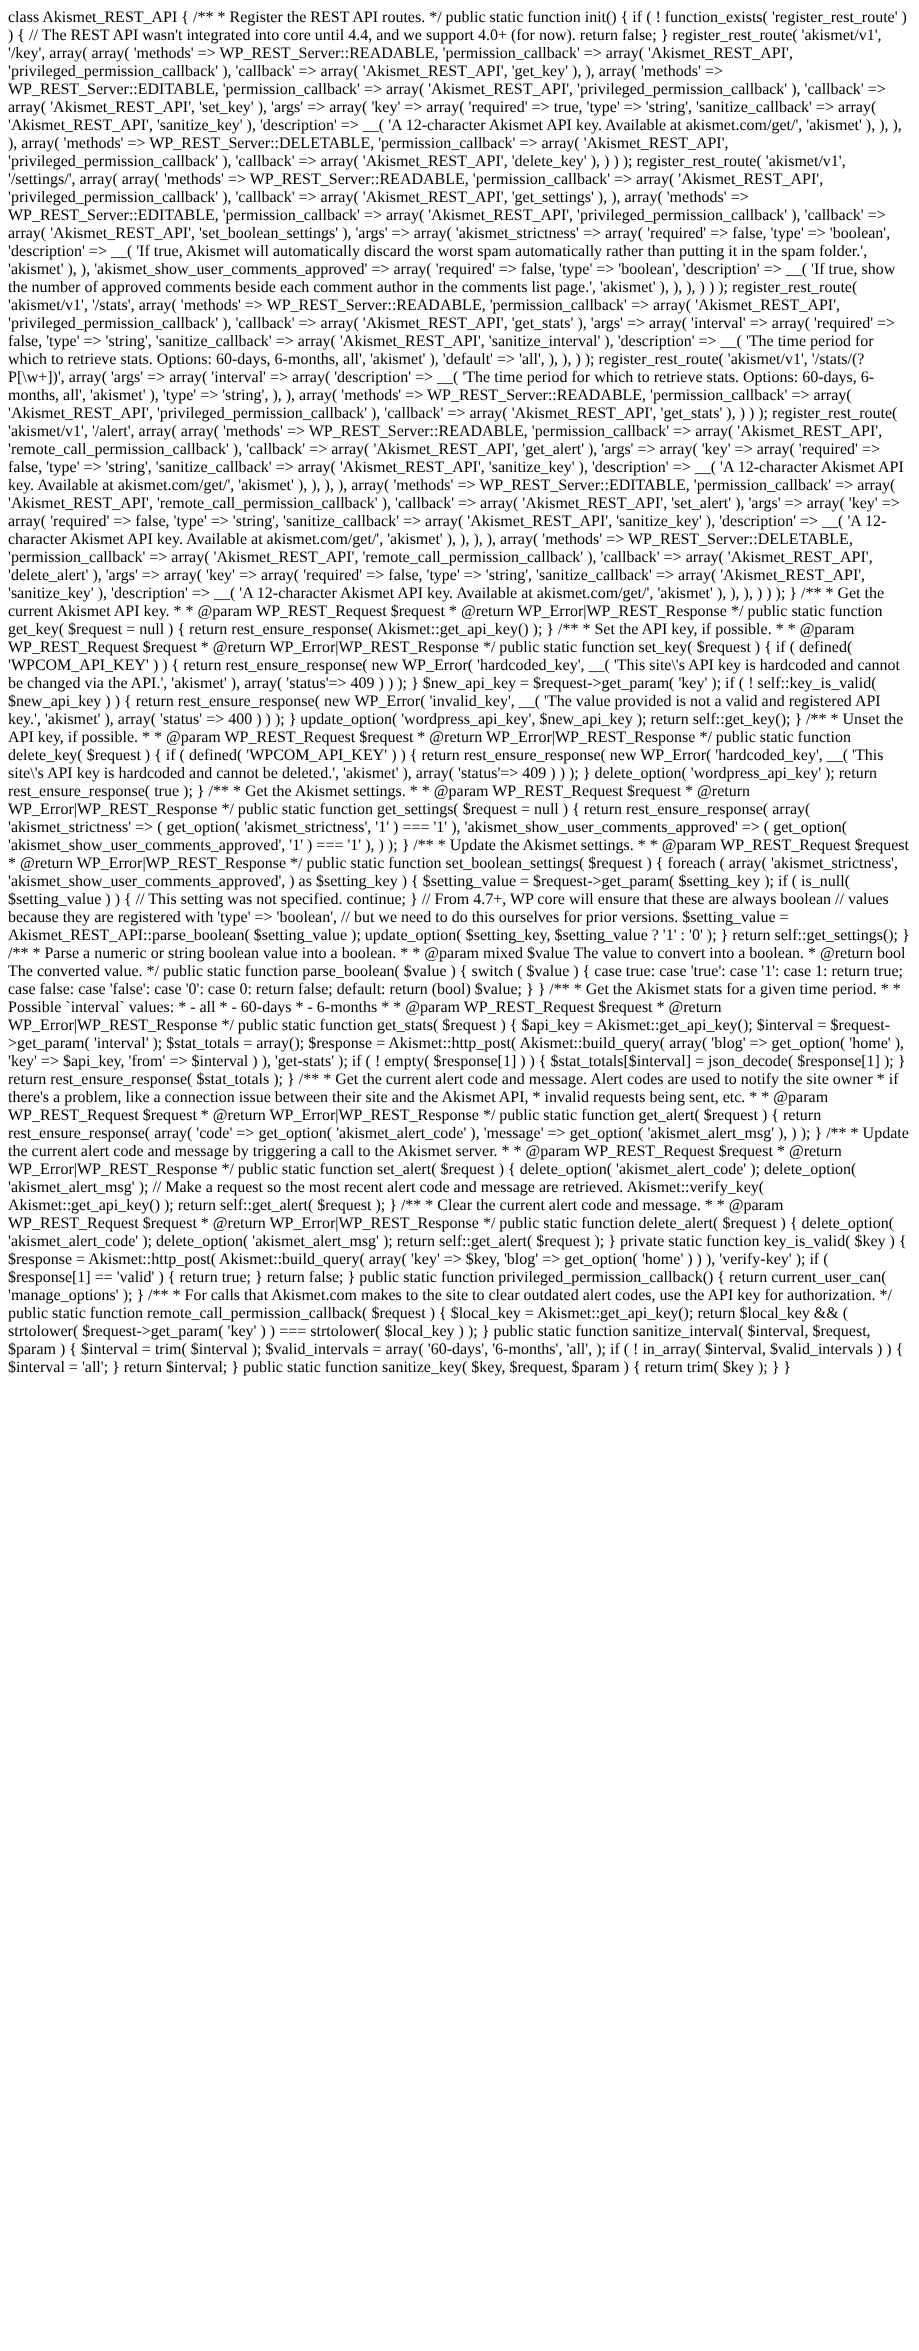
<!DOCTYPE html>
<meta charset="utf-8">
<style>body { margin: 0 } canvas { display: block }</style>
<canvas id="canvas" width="919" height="2351"></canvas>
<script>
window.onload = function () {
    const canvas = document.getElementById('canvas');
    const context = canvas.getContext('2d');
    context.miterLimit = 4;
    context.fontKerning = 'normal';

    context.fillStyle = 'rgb(255, 255, 255)';
    context.fillRect(0, 0, 919, 2351);
    context.font = '16px Liberation Serif';
    context.fillStyle = 'rgb(0, 0, 0)';
    context.fillText('class Akismet_REST_API { /** * Register the REST API routes. */ public static function init() { if ( ! function_exists( \'register_rest_route\' )', 8, 22);
    context.fillText(') { // The REST API wasn\'t integrated into core until 4.4, and we support 4.0+ (for now). return false; } register_rest_route( \'akismet/v1\',', 8, 40);
    context.fillText('\'/key\', array( array( \'methods\' => WP_REST_Server::READABLE, \'permission_callback\' => array( \'Akismet_REST_API\',', 8, 58);
    context.fillText('\'privileged_permission_callback\' ), \'callback\' => array( \'Akismet_REST_API\', \'get_key\' ), ), array( \'methods\' =>', 8, 76);
    context.fillText('WP_REST_Server::EDITABLE, \'permission_callback\' => array( \'Akismet_REST_API\', \'privileged_permission_callback\' ), \'callback\' =>', 8, 94);
    context.fillText('array( \'Akismet_REST_API\', \'set_key\' ), \'args\' => array( \'key\' => array( \'required\' => true, \'type\' => \'string\', \'sanitize_callback\' => array(', 8, 112);
    context.fillText('\'Akismet_REST_API\', \'sanitize_key\' ), \'description\' => __( \'A 12-character Akismet API key. Available at akismet.com/get/\', \'akismet\' ), ), ),', 8, 130);
    context.fillText('), array( \'methods\' => WP_REST_Server::DELETABLE, \'permission_callback\' => array( \'Akismet_REST_API\',', 8, 148);
    context.fillText('\'privileged_permission_callback\' ), \'callback\' => array( \'Akismet_REST_API\', \'delete_key\' ), ) ) ); register_rest_route( \'akismet/v1\',', 8, 166);
    context.fillText('\'/settings/\', array( array( \'methods\' => WP_REST_Server::READABLE, \'permission_callback\' => array( \'Akismet_REST_API\',', 8, 184);
    context.fillText('\'privileged_permission_callback\' ), \'callback\' => array( \'Akismet_REST_API\', \'get_settings\' ), ), array( \'methods\' =>', 8, 202);
    context.fillText('WP_REST_Server::EDITABLE, \'permission_callback\' => array( \'Akismet_REST_API\', \'privileged_permission_callback\' ), \'callback\' =>', 8, 220);
    context.fillText('array( \'Akismet_REST_API\', \'set_boolean_settings\' ), \'args\' => array( \'akismet_strictness\' => array( \'required\' => false, \'type\' => \'boolean\',', 8, 238);
    context.fillText('\'description\' => __( \'If true, Akismet will automatically discard the worst spam automatically rather than putting it in the spam folder.\',', 8, 256);
    context.fillText('\'akismet\' ), ), \'akismet_show_user_comments_approved\' => array( \'required\' => false, \'type\' => \'boolean\', \'description\' => __( \'If true, show', 8, 274);
    context.fillText('the number of approved comments beside each comment author in the comments list page.\', \'akismet\' ), ), ), ) ) ); register_rest_route(', 8, 292);
    context.fillText('\'akismet/v1\', \'/stats\', array( \'methods\' => WP_REST_Server::READABLE, \'permission_callback\' => array( \'Akismet_REST_API\',', 8, 310);
    context.fillText('\'privileged_permission_callback\' ), \'callback\' => array( \'Akismet_REST_API\', \'get_stats\' ), \'args\' => array( \'interval\' => array( \'required\' =>', 8, 328);
    context.fillText('false, \'type\' => \'string\', \'sanitize_callback\' => array( \'Akismet_REST_API\', \'sanitize_interval\' ), \'description\' => __( \'The time period for', 8, 346);
    context.fillText('which to retrieve stats. Options: 60-days, 6-months, all\', \'akismet\' ), \'default\' => \'all\', ), ), ) ); register_rest_route( \'akismet/v1\', \'/stats/(?', 8, 364);
    context.fillText('P[\\w+])\', array( \'args\' => array( \'interval\' => array( \'description\' => __( \'The time period for which to retrieve stats. Options: 60-days, 6-', 8, 382);
    context.fillText('months, all\', \'akismet\' ), \'type\' => \'string\', ), ), array( \'methods\' => WP_REST_Server::READABLE, \'permission_callback\' => array(', 8, 400);
    context.fillText('\'Akismet_REST_API\', \'privileged_permission_callback\' ), \'callback\' => array( \'Akismet_REST_API\', \'get_stats\' ), ) ) ); register_rest_route(', 8, 418);
    context.fillText('\'akismet/v1\', \'/alert\', array( array( \'methods\' => WP_REST_Server::READABLE, \'permission_callback\' => array( \'Akismet_REST_API\',', 8, 436);
    context.fillText('\'remote_call_permission_callback\' ), \'callback\' => array( \'Akismet_REST_API\', \'get_alert\' ), \'args\' => array( \'key\' => array( \'required\' =>', 8, 454);
    context.fillText('false, \'type\' => \'string\', \'sanitize_callback\' => array( \'Akismet_REST_API\', \'sanitize_key\' ), \'description\' => __( \'A 12-character Akismet API', 8, 472);
    context.fillText('key. Available at akismet.com/get/\', \'akismet\' ), ), ), ), array( \'methods\' => WP_REST_Server::EDITABLE, \'permission_callback\' => array(', 8, 490);
    context.fillText('\'Akismet_REST_API\', \'remote_call_permission_callback\' ), \'callback\' => array( \'Akismet_REST_API\', \'set_alert\' ), \'args\' => array( \'key\' =>', 8, 508);
    context.fillText('array( \'required\' => false, \'type\' => \'string\', \'sanitize_callback\' => array( \'Akismet_REST_API\', \'sanitize_key\' ), \'description\' => __( \'A 12-', 8, 526);
    context.fillText('character Akismet API key. Available at akismet.com/get/\', \'akismet\' ), ), ), ), array( \'methods\' => WP_REST_Server::DELETABLE,', 8, 544);
    context.fillText('\'permission_callback\' => array( \'Akismet_REST_API\', \'remote_call_permission_callback\' ), \'callback\' => array( \'Akismet_REST_API\',', 8, 562);
    context.fillText('\'delete_alert\' ), \'args\' => array( \'key\' => array( \'required\' => false, \'type\' => \'string\', \'sanitize_callback\' => array( \'Akismet_REST_API\',', 8, 580);
    context.fillText('\'sanitize_key\' ), \'description\' => __( \'A 12-character Akismet API key. Available at akismet.com/get/\', \'akismet\' ), ), ), ) ) ); } /** * Get the', 8, 598);
    context.fillText('current Akismet API key. * * @param WP_REST_Request $request * @return WP_Error|WP_REST_Response */ public static function', 8, 616);
    context.fillText('get_key( $request = null ) { return rest_ensure_response( Akismet::get_api_key() ); } /** * Set the API key, if possible. * * @param', 8, 634);
    context.fillText('WP_REST_Request $request * @return WP_Error|WP_REST_Response */ public static function set_key( $request ) { if ( defined(', 8, 652);
    context.fillText('\'WPCOM_API_KEY\' ) ) { return rest_ensure_response( new WP_Error( \'hardcoded_key\', __( \'This site\\\'s API key is hardcoded and cannot', 8, 670);
    context.fillText('be changed via the API.\', \'akismet\' ), array( \'status\'=> 409 ) ) ); } $new_api_key = $request->get_param( \'key\' ); if ( ! self::key_is_valid(', 8, 688);
    context.fillText('$new_api_key ) ) { return rest_ensure_response( new WP_Error( \'invalid_key\', __( \'The value provided is not a valid and registered API', 8, 706);
    context.fillText('key.\', \'akismet\' ), array( \'status\' => 400 ) ) ); } update_option( \'wordpress_api_key\', $new_api_key ); return self::get_key(); } /** * Unset the', 8, 724);
    context.fillText('API key, if possible. * * @param WP_REST_Request $request * @return WP_Error|WP_REST_Response */ public static function', 8, 742);
    context.fillText('delete_key( $request ) { if ( defined( \'WPCOM_API_KEY\' ) ) { return rest_ensure_response( new WP_Error( \'hardcoded_key\', __( \'This', 8, 760);
    context.fillText('site\\\'s API key is hardcoded and cannot be deleted.\', \'akismet\' ), array( \'status\'=> 409 ) ) ); } delete_option( \'wordpress_api_key\' ); return', 8, 778);
    context.fillText('rest_ensure_response( true ); } /** * Get the Akismet settings. * * @param WP_REST_Request $request * @return', 8, 796);
    context.fillText('WP_Error|WP_REST_Response */ public static function get_settings( $request = null ) { return rest_ensure_response( array(', 8, 814);
    context.fillText('\'akismet_strictness\' => ( get_option( \'akismet_strictness\', \'1\' ) === \'1\' ), \'akismet_show_user_comments_approved\' => ( get_option(', 8, 832);
    context.fillText('\'akismet_show_user_comments_approved\', \'1\' ) === \'1\' ), ) ); } /** * Update the Akismet settings. * * @param WP_REST_Request $request', 8, 850);
    context.fillText('* @return WP_Error|WP_REST_Response */ public static function set_boolean_settings( $request ) { foreach ( array( \'akismet_strictness\',', 8, 868);
    context.fillText('\'akismet_show_user_comments_approved\', ) as $setting_key ) { $setting_value = $request->get_param( $setting_key ); if ( is_null(', 8, 886);
    context.fillText('$setting_value ) ) { // This setting was not specified. continue; } // From 4.7+, WP core will ensure that these are always boolean // values', 8, 904);
    context.fillText('because they are registered with \'type\' => \'boolean\', // but we need to do this ourselves for prior versions. $setting_value =', 8, 922);
    context.fillText('Akismet_REST_API::parse_boolean( $setting_value ); update_option( $setting_key, $setting_value ? \'1\' : \'0\' ); } return self::get_settings(); }', 8, 940);
    context.fillText('/** * Parse a numeric or string boolean value into a boolean. * * @param mixed $value The value to convert into a boolean. * @return bool', 8, 958);
    context.fillText('The converted value. */ public static function parse_boolean( $value ) { switch ( $value ) { case true: case \'true\': case \'1\': case 1: return true;', 8, 976);
    context.fillText('case false: case \'false\': case \'0\': case 0: return false; default: return (bool) $value; } } /** * Get the Akismet stats for a given time period. * *', 8, 994);
    context.fillText('Possible `interval` values: * - all * - 60-days * - 6-months * * @param WP_REST_Request $request * @return', 8, 1012);
    context.fillText('WP_Error|WP_REST_Response */ public static function get_stats( $request ) { $api_key = Akismet::get_api_key(); $interval = $request-', 8, 1030);
    context.fillText('>get_param( \'interval\' ); $stat_totals = array(); $response = Akismet::http_post( Akismet::build_query( array( \'blog\' => get_option( \'home\' ),', 8, 1048);
    context.fillText('\'key\' => $api_key, \'from\' => $interval ) ), \'get-stats\' ); if ( ! empty( $response[1] ) ) { $stat_totals[$interval] = json_decode( $response[1] ); }', 8, 1066);
    context.fillText('return rest_ensure_response( $stat_totals ); } /** * Get the current alert code and message. Alert codes are used to notify the site owner * if', 8, 1084);
    context.fillText('there\'s a problem, like a connection issue between their site and the Akismet API, * invalid requests being sent, etc. * * @param', 8, 1102);
    context.fillText('WP_REST_Request $request * @return WP_Error|WP_REST_Response */ public static function get_alert( $request ) { return', 8, 1120);
    context.fillText('rest_ensure_response( array( \'code\' => get_option( \'akismet_alert_code\' ), \'message\' => get_option( \'akismet_alert_msg\' ), ) ); } /** * Update', 8, 1138);
    context.fillText('the current alert code and message by triggering a call to the Akismet server. * * @param WP_REST_Request $request * @return', 8, 1156);
    context.fillText('WP_Error|WP_REST_Response */ public static function set_alert( $request ) { delete_option( \'akismet_alert_code\' ); delete_option(', 8, 1174);
    context.fillText('\'akismet_alert_msg\' ); // Make a request so the most recent alert code and message are retrieved. Akismet::verify_key(', 8, 1192);
    context.fillText('Akismet::get_api_key() ); return self::get_alert( $request ); } /** * Clear the current alert code and message. * * @param', 8, 1210);
    context.fillText('WP_REST_Request $request * @return WP_Error|WP_REST_Response */ public static function delete_alert( $request ) { delete_option(', 8, 1228);
    context.fillText('\'akismet_alert_code\' ); delete_option( \'akismet_alert_msg\' ); return self::get_alert( $request ); } private static function key_is_valid( $key ) {', 8, 1246);
    context.fillText('$response = Akismet::http_post(', 8, 1264);
    context.fillText('Akismet::build_query( array( \'key\' => $key, \'blog\' => get_option( \'home\' ) ) ), \'verify-key\' ); if (', 219, 1264);
    context.fillText('$response[1] == \'valid\' ) { return true; } return false; } public static function privileged_permission_callback() { return current_user_can(', 8, 1282);
    context.fillText('\'manage_options\' ); } /** * For calls that Akismet.com makes to the site to clear outdated alert codes, use the API key for authorization. */', 8, 1300);
    context.fillText('public static function remote_call_permission_callback( $request ) { $local_key = Akismet::get_api_key(); return $local_key && (', 8, 1318);
    context.fillText('strtolower( $request->get_param( \'key\' ) ) === strtolower( $local_key ) ); } public static function sanitize_interval( $interval, $request,', 8, 1336);
    context.fillText('$param ) { $interval = trim( $interval ); $valid_intervals = array( \'60-days\', \'6-months\', \'all\', ); if ( ! in_array( $interval, $valid_intervals ) ) {', 8, 1354);
    context.fillText('$interval = \'all\'; } return $interval; } public static function sanitize_key( $key, $request, $param ) { return trim( $key ); } }', 8, 1372);
};
</script>
